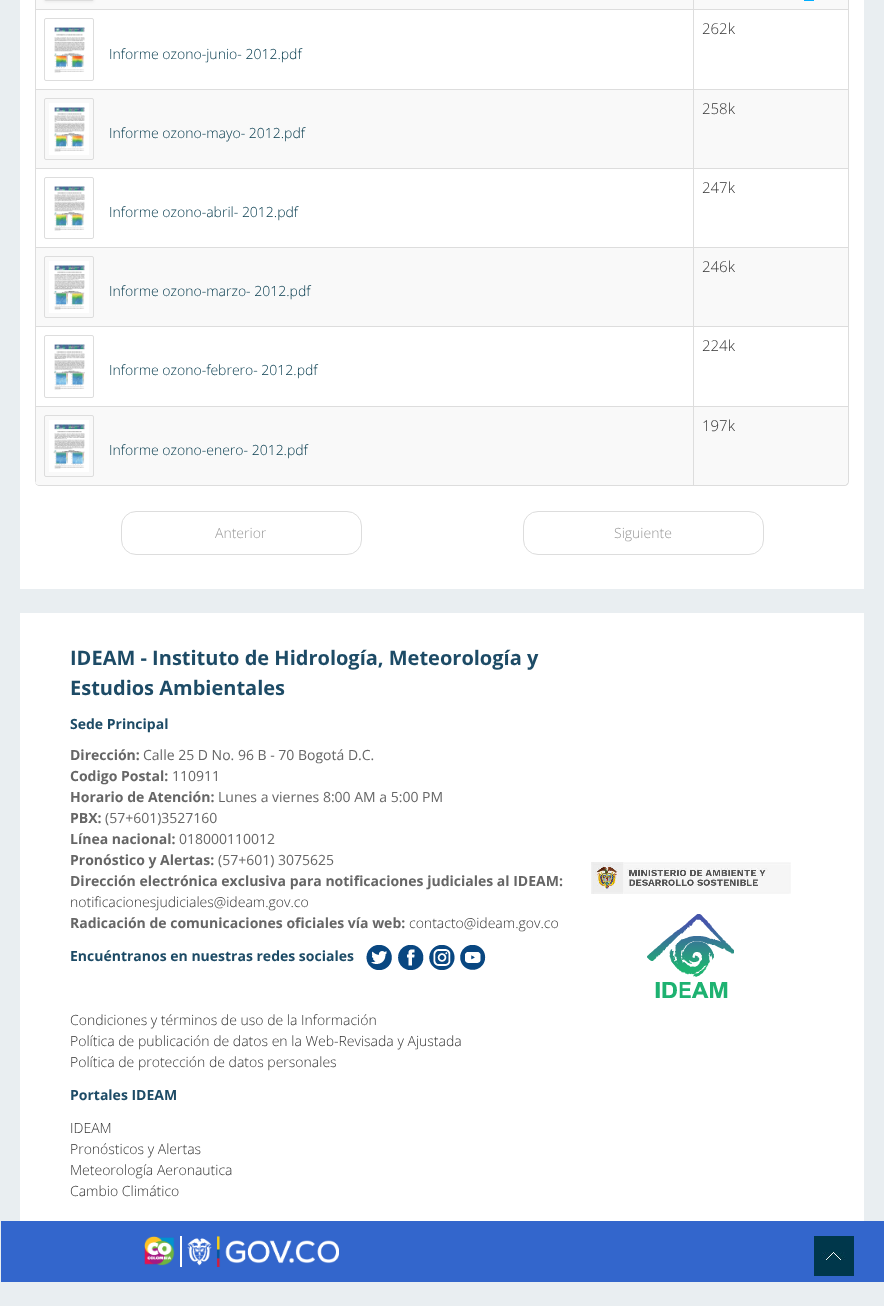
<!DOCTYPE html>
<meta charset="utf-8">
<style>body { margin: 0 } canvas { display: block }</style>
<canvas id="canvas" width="884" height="1306"></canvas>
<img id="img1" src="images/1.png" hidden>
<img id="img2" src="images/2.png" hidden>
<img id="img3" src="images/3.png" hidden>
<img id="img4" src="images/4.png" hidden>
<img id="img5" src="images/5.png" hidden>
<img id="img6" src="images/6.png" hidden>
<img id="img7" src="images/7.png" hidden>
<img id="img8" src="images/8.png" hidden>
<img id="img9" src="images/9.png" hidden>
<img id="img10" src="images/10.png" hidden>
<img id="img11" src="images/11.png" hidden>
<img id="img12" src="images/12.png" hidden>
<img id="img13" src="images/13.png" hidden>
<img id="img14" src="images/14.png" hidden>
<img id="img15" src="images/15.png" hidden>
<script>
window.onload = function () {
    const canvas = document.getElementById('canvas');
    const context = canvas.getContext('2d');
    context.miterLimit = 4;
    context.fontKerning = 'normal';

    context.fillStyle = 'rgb(233, 238, 241)';
    context.fillRect(0, 0, 884, 1306);
    context.fillStyle = 'rgb(255, 255, 255)';
    context.fillRect(20, 0, 844, 589);
    context.fillStyle = 'rgb(221, 221, 221)';
    context.beginPath();
    context.moveTo(40, -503);
    context.lineTo(844, -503);
    context.bezierCurveTo(847, -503, 849, -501, 849, -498);
    context.lineTo(849, 481);
    context.bezierCurveTo(849, 484, 847, 486, 844, 486);
    context.lineTo(40, 486);
    context.bezierCurveTo(37, 486, 35, 484, 35, 481);
    context.lineTo(35, -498);
    context.bezierCurveTo(35, -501, 37, -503, 40, -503);
    context.closePath();
    context.moveTo(40, -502);
    context.lineTo(844, -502);
    context.bezierCurveTo(846, -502, 848, -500, 848, -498);
    context.lineTo(848, 481);
    context.bezierCurveTo(848, 483, 846, 485, 844, 485);
    context.lineTo(40, 485);
    context.bezierCurveTo(37, 485, 35, 483, 35, 481);
    context.lineTo(35, -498);
    context.bezierCurveTo(35, -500, 37, -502, 40, -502);
    context.closePath();
    context.fill('evenodd');
    context.fillStyle = 'rgb(249, 249, 249)';
    context.fillRect(694, 0, 154, 9);
    context.fillStyle = 'rgb(0, 174, 255)';
    context.fillRect(804, 0, 10, 1);
    context.fillStyle = 'rgb(249, 249, 249)';
    context.fillRect(36, 0, 657, 9);
    context.fillStyle = 'rgb(221, 221, 221)';
    context.fillRect(35, 0, 1, 9);
    context.fillStyle = 'rgba(0, 0, 0, 0.06)';
    context.filter = 'blur(1.5px)';
    context.beginPath();
    context.roundRect(44, -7, 50, 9, 2);
    context.fill();
    context.filter = 'none';
    context.beginPath();
    context.roundRect(44.5, -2.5, 49, 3, 1.5);
    context.strokeStyle = 'rgb(221, 221, 221)';
    context.stroke();
    context.fillStyle = 'rgb(221, 221, 221)';
    context.fillRect(693, 0, 1, 9);
    context.fillRect(35, 9, 813, 1);
    context.fillRect(693, 9, 1, 80);
    context.fillRect(35, 9, 1, 80);
    context.beginPath();
    context.roundRect(44.5, 18.5, 49, 62, 1.5);
    context.stroke();
    context.drawImage(document.getElementById('img1'), 54, 27, 31, 46);
    context.fillStyle = 'rgb(249, 249, 249)';
    context.fillRect(694, 90, 154, 78);
    context.fillStyle = 'rgb(221, 221, 221)';
    context.fillRect(35, 89, 813, 1);
    context.fillRect(693, 89, 1, 79);
    context.fillStyle = 'rgb(249, 249, 249)';
    context.fillRect(36, 90, 657, 78);
    context.fillStyle = 'rgb(221, 221, 221)';
    context.fillRect(35, 89, 1, 79);
    context.beginPath();
    context.roundRect(44.5, 98.5, 49, 61, 1.5);
    context.stroke();
    context.drawImage(document.getElementById('img2'), 49, 103, 40, 52);
    context.fillRect(35, 168, 813, 1);
    context.fillRect(693, 168, 1, 79);
    context.fillRect(35, 168, 1, 79);
    context.beginPath();
    context.roundRect(44.5, 177.5, 49, 61, 1.5);
    context.stroke();
    context.drawImage(document.getElementById('img3'), 54, 186, 31, 45);
    context.fillStyle = 'rgb(249, 249, 249)';
    context.fillRect(694, 248, 154, 78);
    context.fillStyle = 'rgb(221, 221, 221)';
    context.fillRect(35, 247, 813, 1);
    context.fillRect(693, 247, 1, 79);
    context.fillStyle = 'rgb(249, 249, 249)';
    context.fillRect(36, 248, 657, 78);
    context.fillStyle = 'rgb(221, 221, 221)';
    context.fillRect(35, 247, 1, 79);
    context.beginPath();
    context.roundRect(44.5, 256.5, 49, 61, 1.5);
    context.stroke();
    context.drawImage(document.getElementById('img4'), 49, 261, 40, 52);
    context.fillRect(35, 326, 813, 1);
    context.fillRect(693, 326, 1, 80);
    context.fillRect(35, 326, 1, 80);
    context.beginPath();
    context.roundRect(44.5, 335.5, 49, 62, 1.5);
    context.stroke();
    context.drawImage(document.getElementById('img5'), 54, 344, 31, 46);
    context.fillStyle = 'rgb(249, 249, 249)';
    context.beginPath();
    context.moveTo(693, 406);
    context.lineTo(693, 485);
    context.lineTo(844, 485);
    context.bezierCurveTo(846, 485, 848, 483, 848, 481);
    context.lineTo(848, 406);
    context.closePath();
    context.fill();
    context.fillStyle = 'rgb(221, 221, 221)';
    context.fillRect(693, 406, 155, 1);
    context.fillRect(693, 406, 1, 79);
    context.fillStyle = 'rgb(249, 249, 249)';
    context.beginPath();
    context.moveTo(35, 406);
    context.lineTo(35, 481);
    context.bezierCurveTo(35, 483, 37, 485, 40, 485);
    context.lineTo(693, 485);
    context.lineTo(693, 406);
    context.closePath();
    context.fill();
    context.fillStyle = 'rgb(221, 221, 221)';
    context.fillRect(35, 406, 658, 1);
    context.beginPath();
    context.moveTo(35, 406);
    context.lineTo(35, 481);
    context.lineTo(36, 483);
    context.lineTo(36, 406);
    context.closePath();
    context.fill();
    context.beginPath();
    context.roundRect(44.5, 415.5, 49, 61, 1.5);
    context.stroke();
    context.drawImage(document.getElementById('img6'), 49, 420, 40, 52);
    context.beginPath();
    context.roundRect(121.5, 511.5, 240, 43, 14.5);
    context.stroke();
    context.beginPath();
    context.roundRect(523.5, 511.5, 240, 43, 14.5);
    context.stroke();
    context.fillStyle = 'rgb(51, 102, 204)';
    context.fillRect(1, 1221, 883, 61);
    context.drawImage(document.getElementById('img7'), 814, 1236, 40, 40);
    context.fillStyle = 'rgb(255, 255, 255)';
    context.fillRect(20, 613, 844, 608);
    context.drawImage(document.getElementById('img8'), 366, 945, 26, 25);
    context.drawImage(document.getElementById('img9'), 398, 945, 26, 25);
    context.drawImage(document.getElementById('img10'), 429, 945, 26, 25);
    context.drawImage(document.getElementById('img11'), 460, 945, 26, 25);
    context.drawImage(document.getElementById('img12'), 591, 862, 200, 32);
    context.drawImage(document.getElementById('img13'), 647, 914, 87, 84);
    context.drawImage(document.getElementById('img14'), 144, 1236, 31, 30);
    context.fillRect(180, 1236, 2, 31);
    context.drawImage(document.getElementById('img15'), 187, 1236, 152, 31);
    context.font = '300 15px Open Sans';
    context.fillStyle = 'rgb(51, 51, 51)';
    context.fillText('262k', 702, 34);
    context.font = '300 14px Open Sans';
    context.fillStyle = 'rgb(0, 55, 74)';
    context.fillText('Informe ozono-junio- 2012.pdf', 109, 59);
    context.font = '300 15px Open Sans';
    context.fillStyle = 'rgb(51, 51, 51)';
    context.fillText('258k', 702, 114);
    context.font = '300 14px Open Sans';
    context.fillStyle = 'rgb(0, 55, 74)';
    context.fillText('Informe ozono-mayo- 2012.pdf', 109, 138);
    context.font = '300 15px Open Sans';
    context.fillStyle = 'rgb(51, 51, 51)';
    context.fillText('247k', 702, 193);
    context.font = '300 14px Open Sans';
    context.fillStyle = 'rgb(0, 55, 74)';
    context.fillText('Informe ozono-abril- 2012.pdf', 109, 217);
    context.font = '300 15px Open Sans';
    context.fillStyle = 'rgb(51, 51, 51)';
    context.fillText('246k', 702, 272);
    context.font = '300 14px Open Sans';
    context.fillStyle = 'rgb(0, 55, 74)';
    context.fillText('Informe ozono-marzo- 2012.pdf', 109, 296);
    context.font = '300 15px Open Sans';
    context.fillStyle = 'rgb(51, 51, 51)';
    context.fillText('224k', 702, 351);
    context.font = '300 14px Open Sans';
    context.fillStyle = 'rgb(0, 55, 74)';
    context.fillText('Informe ozono-febrero- 2012.pdf', 109, 375);
    context.font = '300 15px Open Sans';
    context.fillStyle = 'rgb(51, 51, 51)';
    context.fillText('197k', 702, 431);
    context.font = '300 14px Open Sans';
    context.fillStyle = 'rgb(0, 55, 74)';
    context.fillText('Informe ozono-enero- 2012.pdf', 109, 455);
    context.fillStyle = 'rgb(153, 153, 153)';
    context.fillText('Anterior', 215, 538);
    context.fillText('Siguiente', 614, 538);
    context.font = 'bold 20px Open Sans';
    context.fillStyle = 'rgb(29, 75, 102)';
    context.fillText('IDEAM - Instituto de Hidrología, Meteorología y', 70, 665);
    context.fillText('Estudios Ambientales', 70, 695);
    context.font = 'bold 14px Open Sans';
    context.fillText('Sede Principal', 70, 729);
    context.fillStyle = 'rgb(102, 102, 102)';
    context.fillText('Dirección:', 70, 760);
    context.font = '14px Open Sans';
    context.fillText('Calle 25 D No. 96 B - 70 Bogotá D.C.', 143, 760);
    context.font = 'bold 14px Open Sans';
    context.fillText('Codigo Postal:', 70, 781);
    context.font = '14px Open Sans';
    context.fillText('110911', 172, 781);
    context.font = 'bold 14px Open Sans';
    context.fillText('Horario de Atención:', 70, 802);
    context.font = '14px Open Sans';
    context.fillText('Lunes a viernes 8:00 AM a 5:00 PM', 218, 802);
    context.font = 'bold 14px Open Sans';
    context.fillText('PBX:', 70, 823);
    context.font = '14px Open Sans';
    context.fillText('(57+601)3527160', 105, 823);
    context.font = 'bold 14px Open Sans';
    context.fillText('Línea nacional:', 70, 844);
    context.font = '14px Open Sans';
    context.fillText('018000110012', 179, 844);
    context.font = 'bold 14px Open Sans';
    context.fillText('Pronóstico y Alertas:', 70, 865);
    context.font = '14px Open Sans';
    context.fillText('(57+601) 3075625', 218, 865);
    context.font = 'bold 14px Open Sans';
    context.fillText('Dirección electrónica exclusiva para notificaciones judiciales al IDEAM:', 70, 886);
    context.font = '300 14px Open Sans';
    context.fillStyle = 'rgb(51, 51, 51)';
    context.fillText('notificacionesjudiciales@ideam.gov.co', 70, 907);
    context.font = 'bold 14px Open Sans';
    context.fillStyle = 'rgb(102, 102, 102)';
    context.fillText('Radicación de comunicaciones oficiales vía web:', 70, 928);
    context.font = '300 14px Open Sans';
    context.fillStyle = 'rgb(51, 51, 51)';
    context.fillText('contacto@ideam.gov.co', 409, 928);
    context.font = 'bold 14px Open Sans';
    context.fillStyle = 'rgb(29, 75, 102)';
    context.fillText('Encuéntranos en nuestras redes sociales', 70, 961);
    context.font = '300 14px Open Sans';
    context.fillStyle = 'rgb(51, 51, 51)';
    context.fillText('Condiciones y términos de uso de la Información', 70, 1025);
    context.fillText('Política de publicación de datos en la Web-Revisada y Ajustada', 70, 1046);
    context.fillText('Política de protección de datos personales', 70, 1067);
    context.font = 'bold 14px Open Sans';
    context.fillStyle = 'rgb(29, 75, 102)';
    context.fillText('Portales IDEAM', 70, 1100);
    context.font = '300 14px Open Sans';
    context.fillStyle = 'rgb(51, 51, 51)';
    context.fillText('IDEAM', 70, 1133);
    context.fillText('Pronósticos y Alertas', 70, 1154);
    context.fillText('Meteorología Aeronautica', 70, 1175);
    context.fillText('Cambio Climático', 70, 1196);
};
</script>
